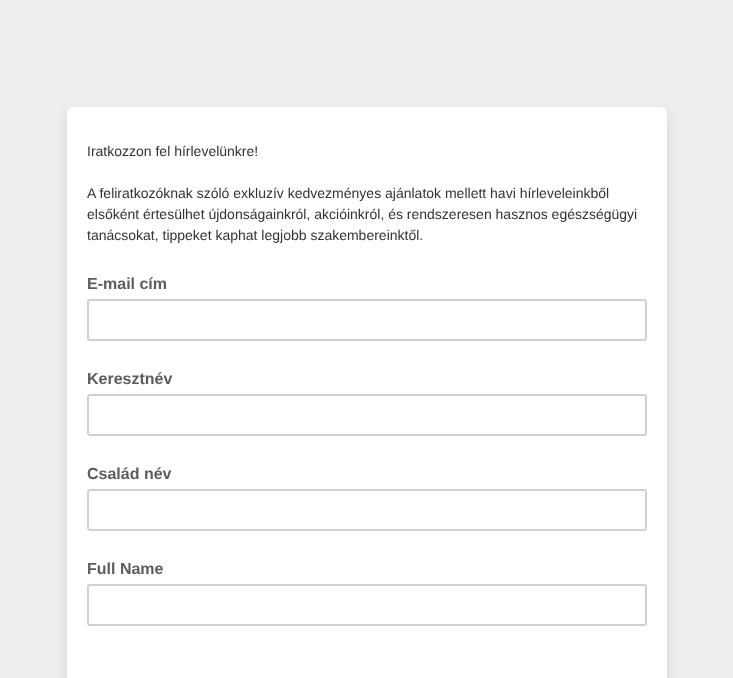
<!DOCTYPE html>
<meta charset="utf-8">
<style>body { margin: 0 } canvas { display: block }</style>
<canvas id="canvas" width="733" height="678"></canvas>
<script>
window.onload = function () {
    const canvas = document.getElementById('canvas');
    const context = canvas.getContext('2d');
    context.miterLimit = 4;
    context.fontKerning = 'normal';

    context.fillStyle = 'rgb(238, 238, 238)';
    context.fillRect(0, 0, 733, 678);
    context.fillStyle = 'rgba(13, 18, 22, 0.12)';
    context.filter = 'blur(6px)';
    context.beginPath();
    context.roundRect(67, 113, 600, 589, 6);
    context.fill();
    context.filter = 'none';
    context.fillStyle = 'rgb(255, 255, 255)';
    context.beginPath();
    context.roundRect(67, 107, 600, 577, 6);
    context.fill();
    context.beginPath();
    context.roundRect(88, 300, 558, 40, 2);
    context.strokeStyle = 'rgb(208, 208, 208)';
    context.lineWidth = 2;
    context.stroke();
    context.beginPath();
    context.roundRect(88, 395, 558, 40, 2);
    context.stroke();
    context.beginPath();
    context.roundRect(88, 490, 558, 40, 2);
    context.stroke();
    context.beginPath();
    context.roundRect(88, 585, 558, 40, 2);
    context.stroke();
    context.font = '14px Liberation Sans';
    context.fillStyle = 'rgb(51, 51, 51)';
    context.fillText('Iratkozzon fel hírlevelünkre!', 87, 156);
    context.fillText('A feliratkozóknak szóló exkluzív kedvezményes ajánlatok mellett havi hírleveleinkből', 87, 198);
    context.fillText('elsőként értesülhet újdonságainkról, akcióinkról, és rendszeresen hasznos egészségügyi', 87, 219);
    context.fillText('tanácsokat, tippeket kaphat legjobb szakembereinktől.', 87, 240);
    context.font = 'bold 16px Liberation Sans';
    context.fillStyle = 'rgb(93, 93, 93)';
    context.fillText('E-mail cím', 87, 289);
    context.fillText('Keresztnév', 87, 384);
    context.fillText('Család név', 87, 479);
    context.fillText('Full Name', 87, 574);
};
</script>
